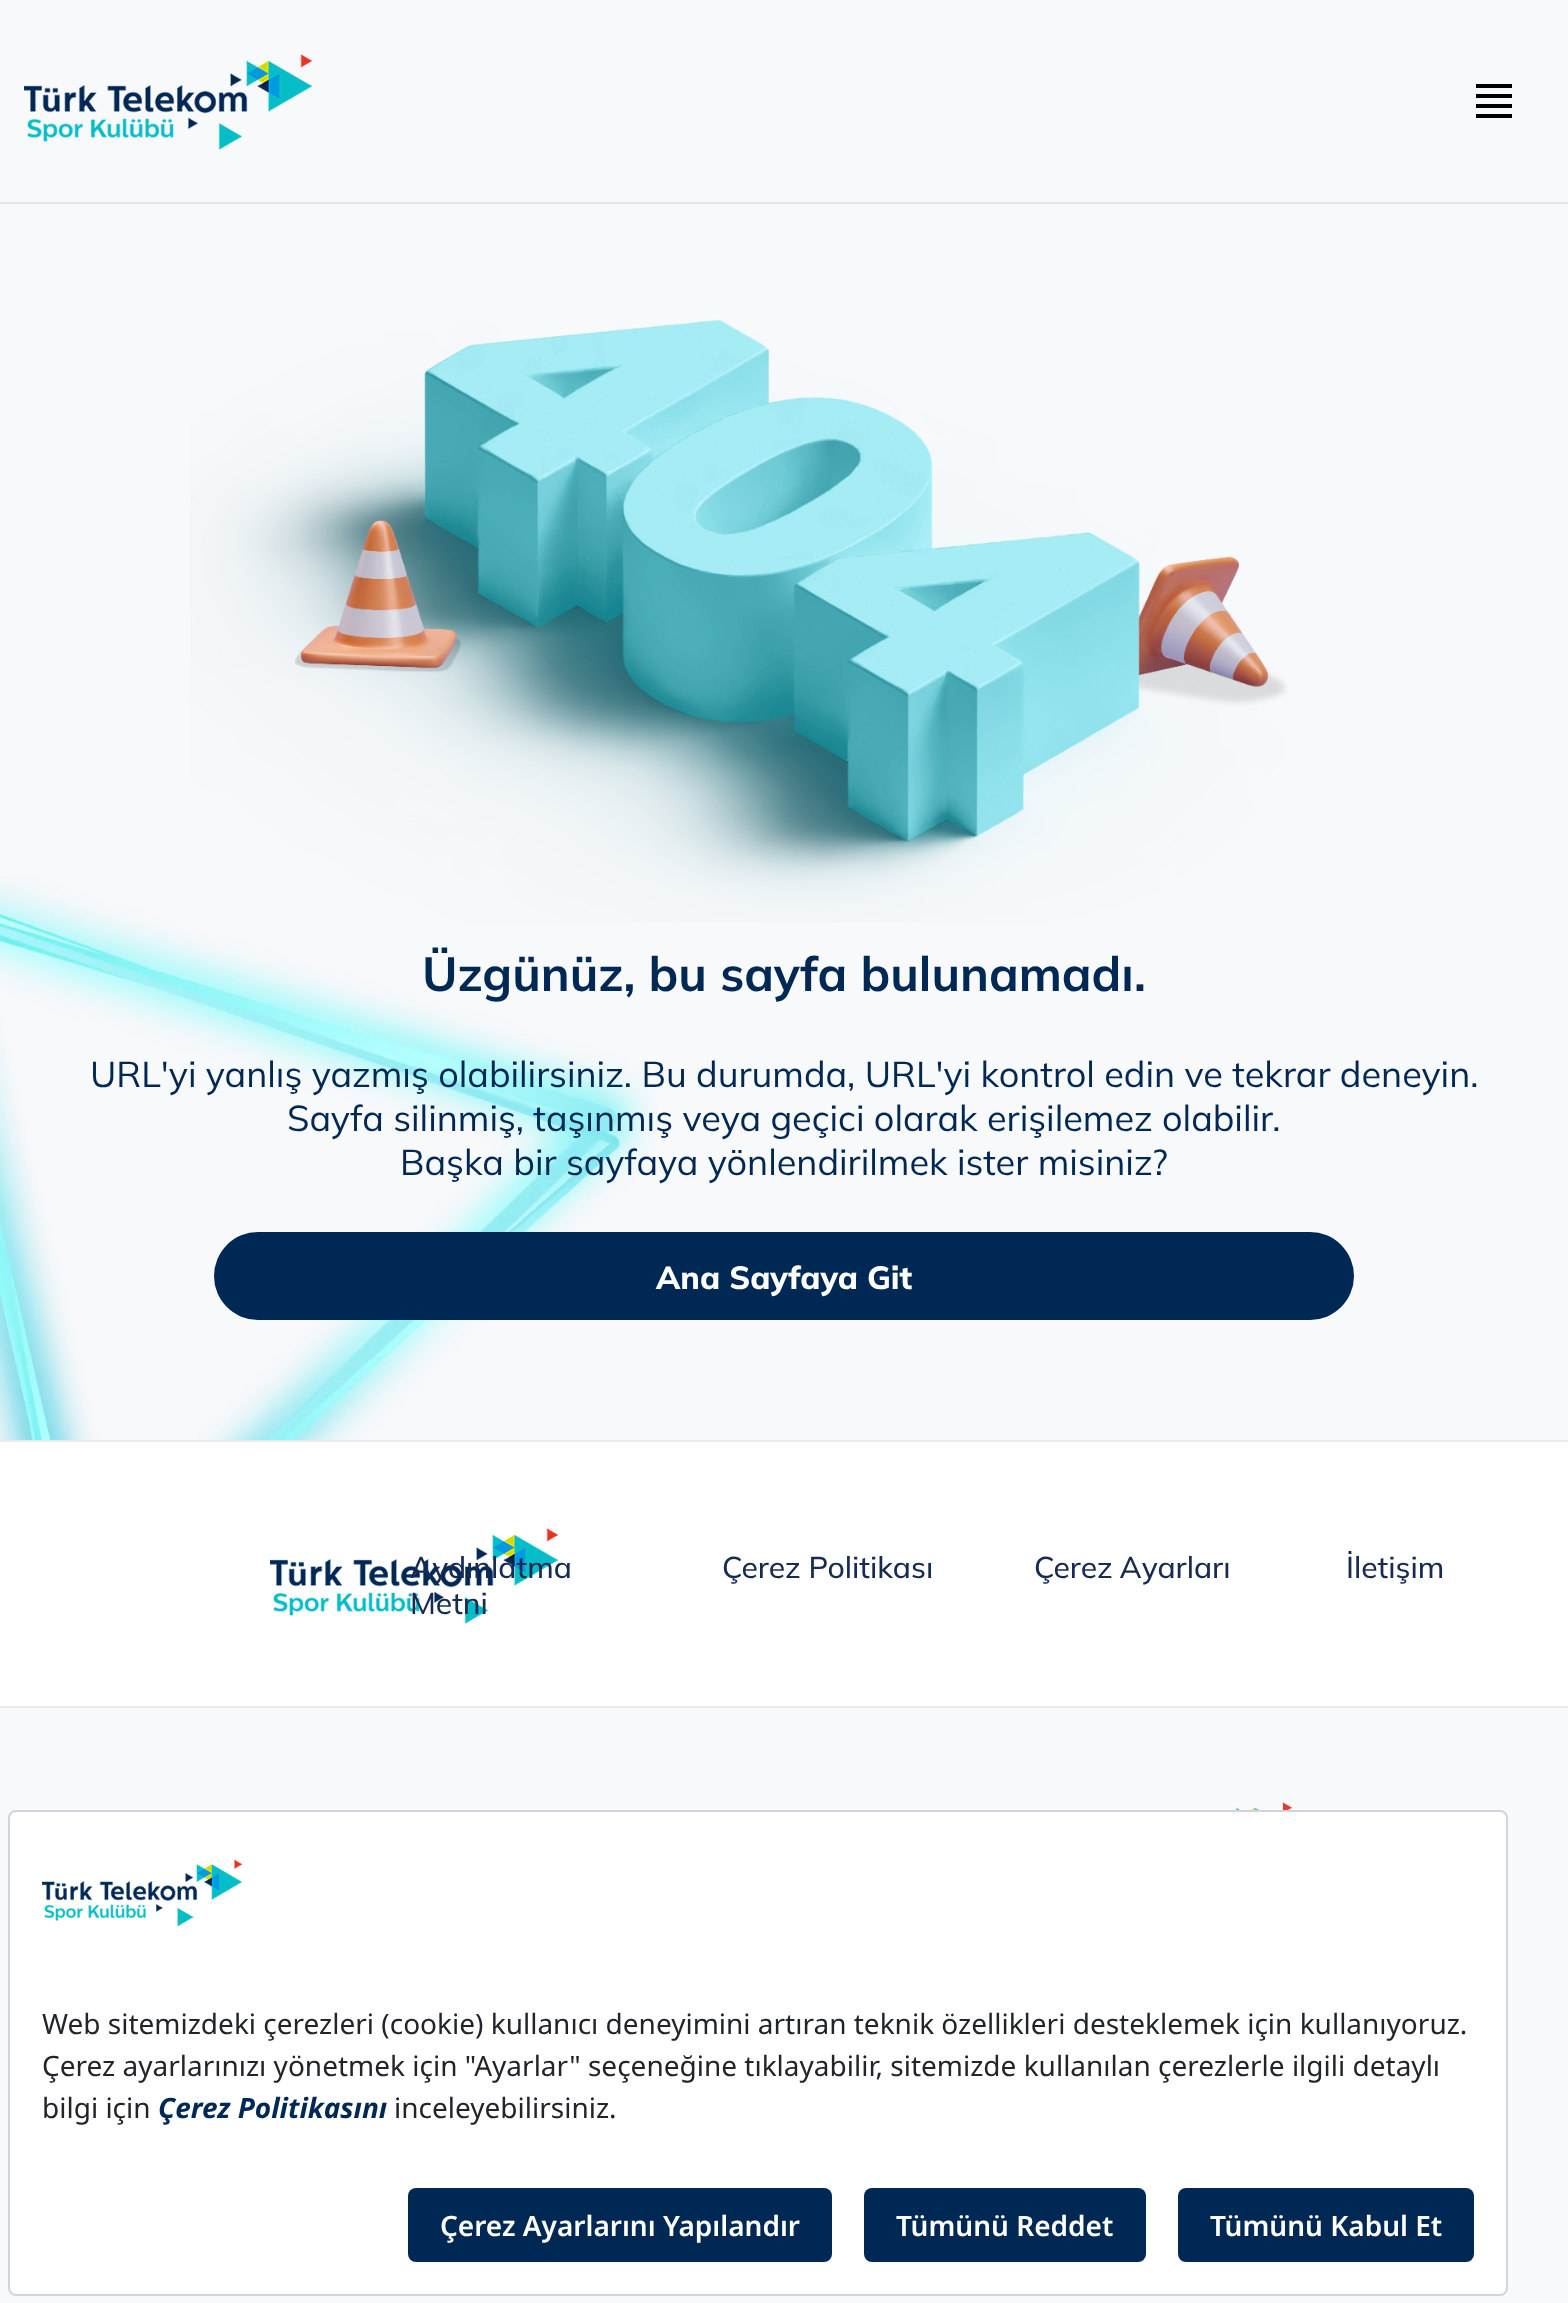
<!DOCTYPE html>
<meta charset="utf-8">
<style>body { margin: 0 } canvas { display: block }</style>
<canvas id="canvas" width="1568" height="2303"></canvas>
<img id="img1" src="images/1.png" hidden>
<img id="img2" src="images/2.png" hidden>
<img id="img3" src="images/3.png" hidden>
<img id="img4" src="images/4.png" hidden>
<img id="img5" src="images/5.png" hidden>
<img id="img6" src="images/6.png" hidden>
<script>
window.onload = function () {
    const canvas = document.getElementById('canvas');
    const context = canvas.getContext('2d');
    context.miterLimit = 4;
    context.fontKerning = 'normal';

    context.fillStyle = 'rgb(248, 249, 251)';
    context.fillRect(0, 0, 1568, 2303);
    context.fillStyle = 'rgb(222, 227, 237)';
    context.fillRect(0, 202, 1568, 2);
    context.drawImage(document.getElementById('img1'), 24, 54, 288, 96);
    context.fillStyle = 'rgb(0, 0, 0)';
    context.fillRect(1476, 84, 36, 4);
    context.fillRect(1476, 94, 36, 4);
    context.fillRect(1476, 104, 36, 4);
    context.fillRect(1476, 114, 36, 4);
    context.drawImage(document.getElementById('img2'), 0, 876, 657, 564);
    context.drawImage(document.getElementById('img3'), 190, 319, 1098, 604);
    context.fillStyle = 'rgb(0, 40, 85)';
    context.beginPath();
    context.roundRect(214, 1232, 1140, 88, 44);
    context.fill();
    context.fillStyle = 'rgb(255, 255, 255)';
    context.fillRect(0, 1442, 1568, 264);
    context.fillStyle = 'rgb(232, 235, 235)';
    context.fillRect(0, 1440, 1568, 2);
    context.fillRect(0, 1706, 1568, 2);
    context.drawImage(document.getElementById('img4'), 270, 1528, 288, 96);
    context.drawImage(document.getElementById('img5'), 1236, 1802, 56, 8);
    context.fillStyle = 'rgb(255, 255, 255)';
    context.beginPath();
    context.roundRect(9, 1811, 1498, 484, 7);
    context.fill();
    context.strokeStyle = 'rgb(209, 213, 219)';
    context.lineWidth = 2;
    context.stroke();
    context.drawImage(document.getElementById('img6'), 42, 1859, 200, 68);
    context.fillStyle = 'rgb(0, 40, 85)';
    context.beginPath();
    context.roundRect(408, 2188, 424, 74, 8);
    context.fill();
    context.beginPath();
    context.roundRect(864, 2188, 282, 74, 8);
    context.fill();
    context.beginPath();
    context.roundRect(1178, 2188, 296, 74, 8);
    context.fill();
    context.font = 'bold 48px Mulish';
    context.fillText('Üzgünüz, bu sayfa bulunamadı.', 422, 991);
    context.font = '36px Mulish';
    context.fillText('URL\'yi yanlış yazmış olabilirsiniz. Bu durumda, URL\'yi kontrol edin ve tekrar deneyin.', 90, 1087);
    context.fillText('Sayfa silinmiş, taşınmış veya geçici olarak erişilemez olabilir.', 287, 1131);
    context.fillText('Başka bir sayfaya yönlendirilmek ister misiniz?', 400, 1175);
    context.font = '800 32px Mulish';
    context.fillStyle = 'rgb(255, 255, 255)';
    context.fillText('Ana Sayfaya Git', 656, 1289);
    context.font = '500 30px Mulish';
    context.fillStyle = 'rgb(23, 42, 83)';
    context.fillText('Aydınlatma', 410, 1578);
    context.fillText('Metni', 410, 1614);
    context.fillText('Çerez Politikası', 722, 1578);
    context.wordSpacing = '-1px';
    context.fillText('Çerez Ayarları', 1034, 1578);
    context.wordSpacing = '0px';
    context.fillText('İletişim', 1346, 1578);
    context.font = '28px Noto Sans';
    context.fillStyle = 'rgb(33, 37, 41)';
    context.fillText('Web sitemizdeki çerezleri (cookie) kullanıcı deneyimini artıran teknik özellikleri desteklemek için kullanıyoruz.', 42, 2034);
    context.fillText('Çerez ayarlarınızı yönetmek için "Ayarlar" seçeneğine tıklayabilir, sitemizde kullanılan çerezlerle ilgili detaylı', 42, 2076);
    context.fillText('bilgi için', 42, 2118);
    context.font = 'italic bold 28px Noto Sans';
    context.fillStyle = 'rgb(0, 40, 85)';
    context.fillText('Çerez Politikasını', 158, 2118);
    context.font = '28px Noto Sans';
    context.fillStyle = 'rgb(33, 37, 41)';
    context.fillText('inceleyebilirsiniz.', 394, 2118);
    context.font = '600 28px Noto Sans';
    context.fillStyle = 'rgb(255, 255, 255)';
    context.fillText('Çerez Ayarlarını Yapılandır', 440, 2236);
    context.fillText('Tümünü Reddet', 896, 2236);
    context.fillText('Tümünü Kabul Et', 1210, 2236);
};
</script>
